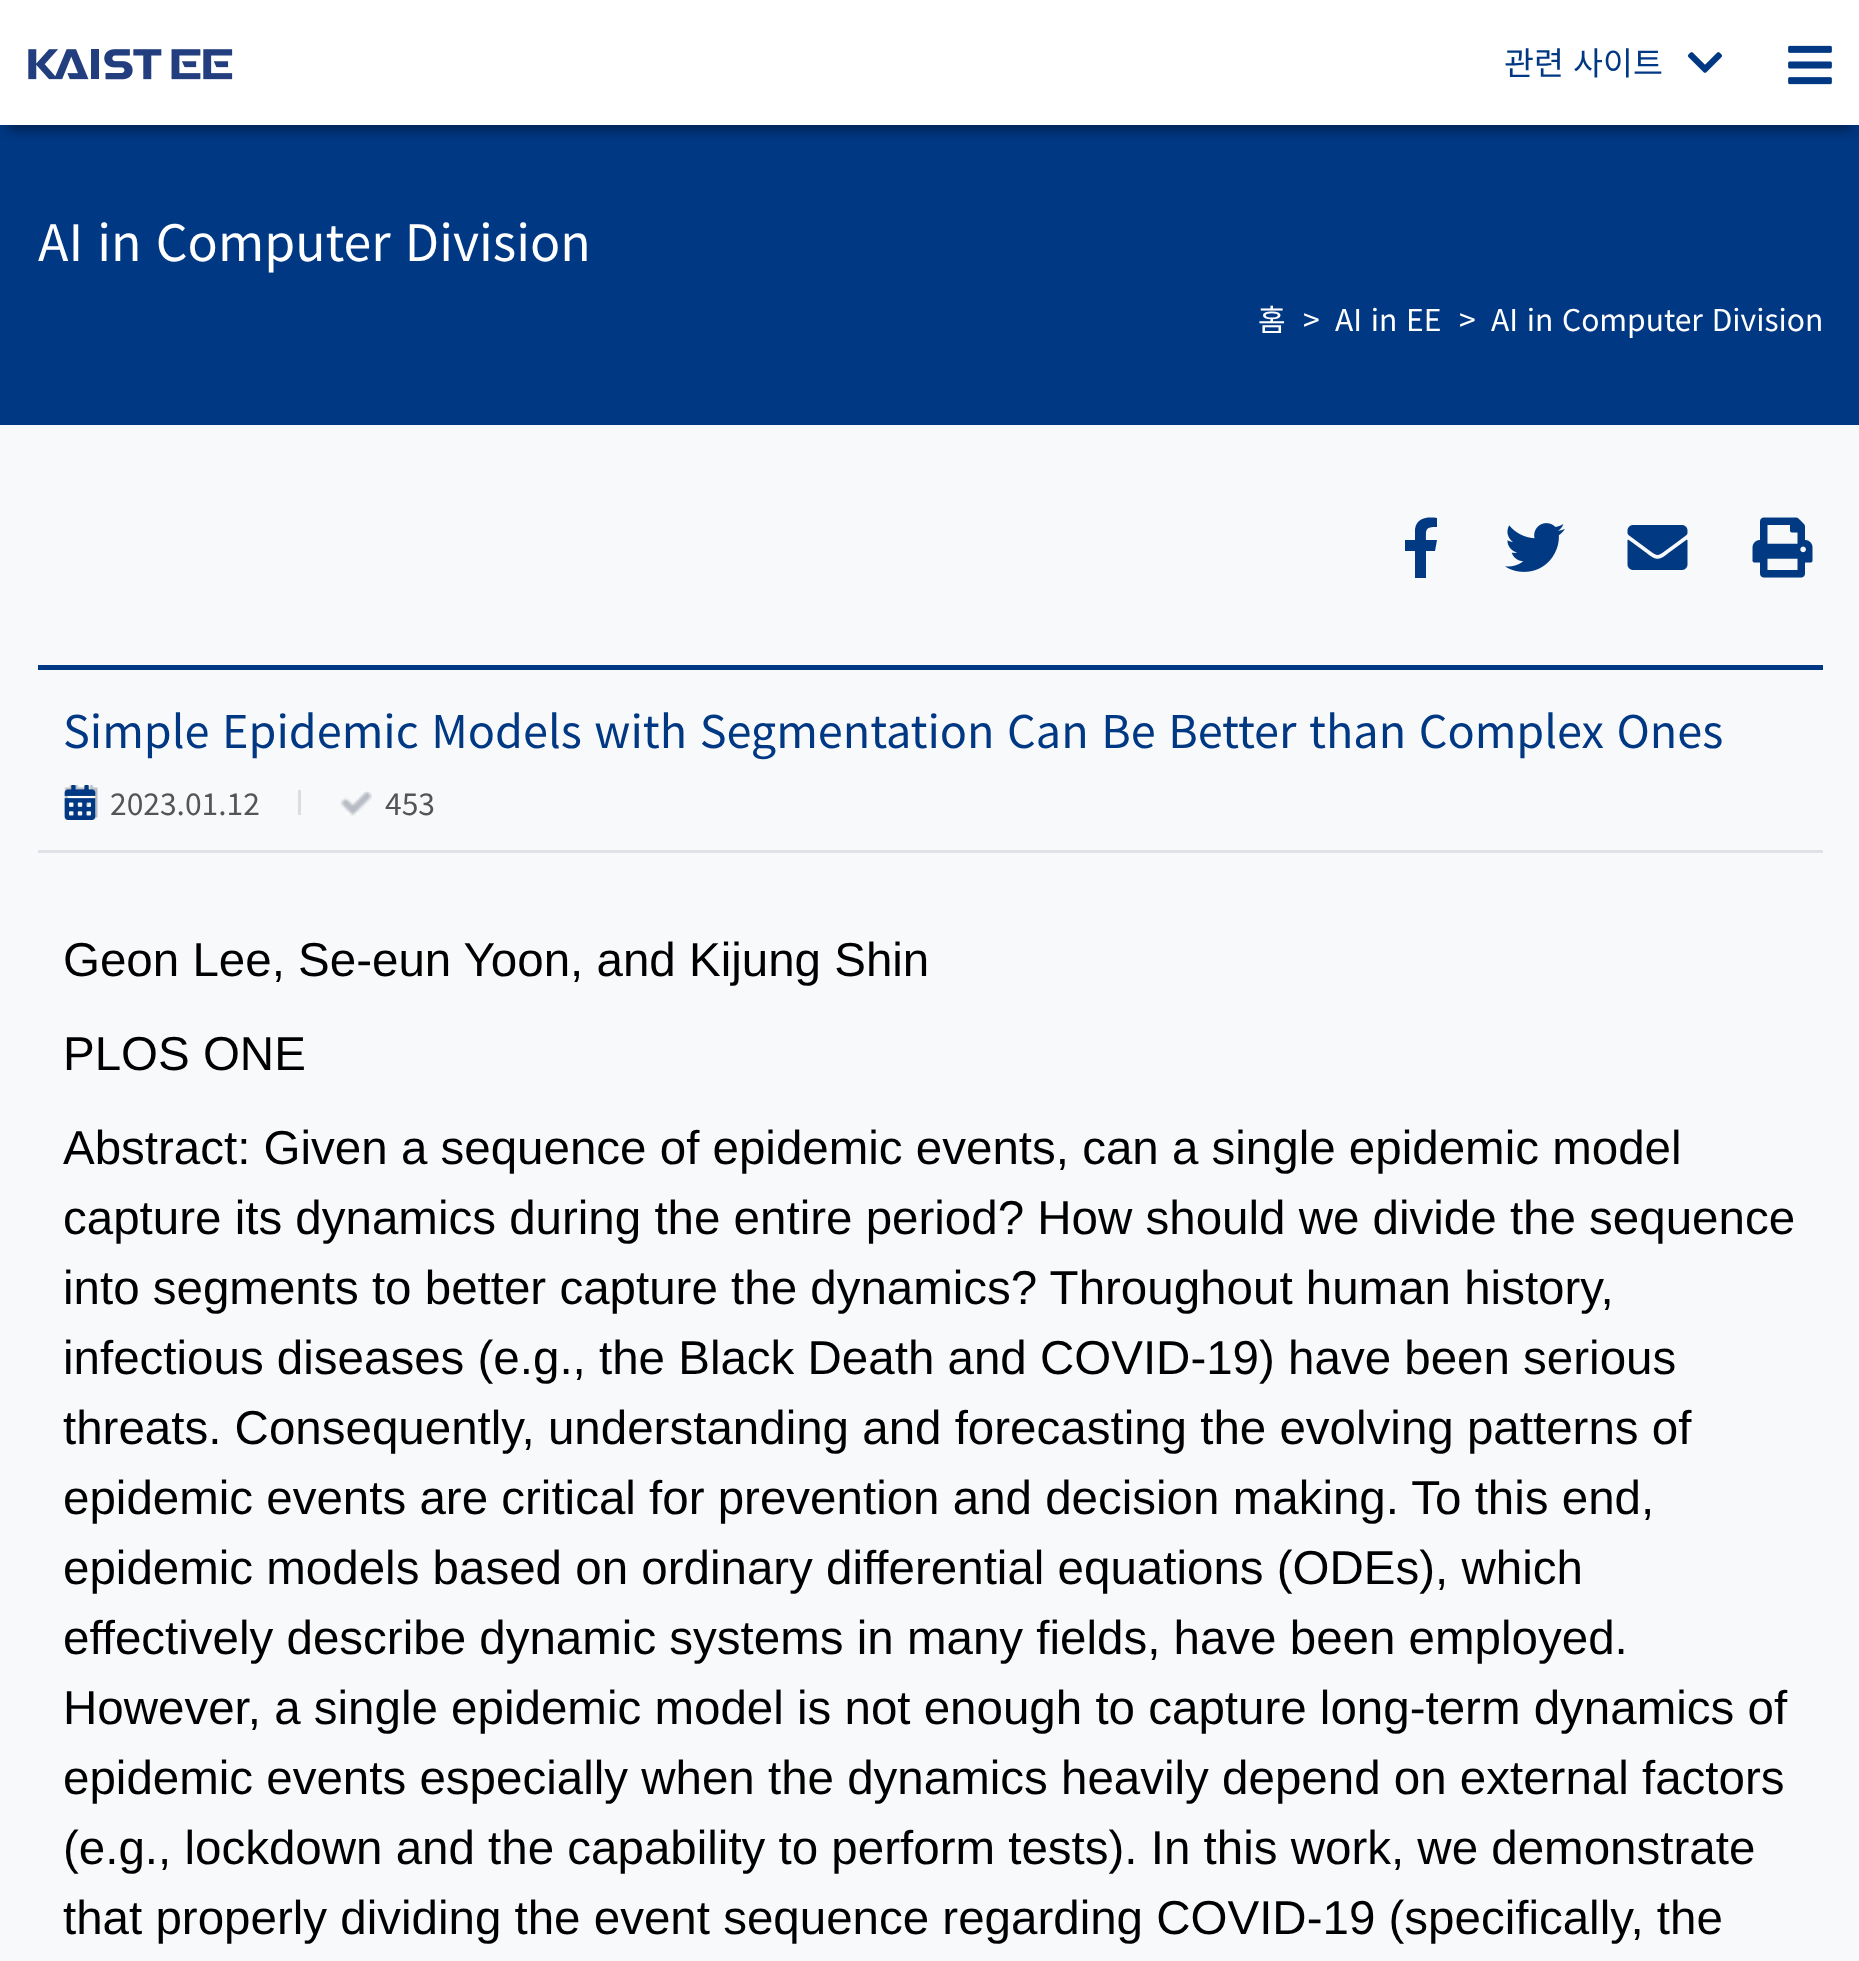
<!DOCTYPE html>
<meta charset="utf-8">
<style>body { margin: 0 } canvas { display: block }</style>
<canvas id="canvas" width="1859" height="1961"></canvas>
<img id="img1" src="images/1.png" hidden>
<img id="img2" src="images/2.png" hidden>
<img id="img3" src="images/3.png" hidden>
<img id="img4" src="images/4.png" hidden>
<img id="img5" src="images/5.png" hidden>
<img id="img6" src="images/6.png" hidden>
<img id="img7" src="images/7.png" hidden>
<img id="img8" src="images/8.png" hidden>
<img id="img9" src="images/9.png" hidden>
<script>
window.onload = function () {
    const canvas = document.getElementById('canvas');
    const context = canvas.getContext('2d');
    context.miterLimit = 4;
    context.fontKerning = 'normal';

    context.fillStyle = 'rgb(248, 249, 251)';
    context.fillRect(0, 0, 1859, 1961);
    context.fillStyle = 'rgb(255, 255, 255)';
    context.fillRect(0, 0, 1859, 125);
    context.fillStyle = 'rgb(0, 56, 131)';
    context.fillRect(0, 125, 1859, 300);
    context.save();
    context.beginPath();
    context.rect(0, 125, 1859, 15);
    context.clip();
    context.fillStyle = 'rgba(0, 0, 0, 0.4)';
    context.filter = 'blur(6px)';
    context.beginPath();
    context.rect(8, 20, 1845, 110);
    context.fill();
    context.filter = 'none';
    context.restore();
    context.drawImage(document.getElementById('img1'), 28, 49, 205, 31);
    context.drawImage(document.getElementById('img2'), 1688, 52, 34, 21);
    context.drawImage(document.getElementById('img3'), 1788, 45, 44, 40);
    context.fillStyle = 'rgb(1, 57, 131)';
    context.beginPath();
    context.moveTo(1435, 551);
    context.lineTo(1426, 551);
    context.lineTo(1426, 578);
    context.lineTo(1415, 578);
    context.lineTo(1415, 551);
    context.lineTo(1405, 551);
    context.lineTo(1405, 540);
    context.lineTo(1415, 540);
    context.lineTo(1415, 529);
    context.bezierCurveTo(1417, 517, 1428, 517, 1437, 518);
    context.lineTo(1437, 527);
    context.bezierCurveTo(1425, 527, 1426, 529, 1426, 540);
    context.lineTo(1437, 540);
    context.closePath();
    context.fill();
    context.drawImage(document.getElementById('img4'), 1505, 523, 60, 49);
    context.drawImage(document.getElementById('img5'), 1627, 525, 61, 45);
    context.drawImage(document.getElementById('img6'), 1752, 517, 61, 61);
    context.fillStyle = 'rgb(0, 56, 131)';
    context.fillRect(38, 665, 1785, 5);
    context.fillStyle = 'rgb(224, 226, 232)';
    context.fillRect(38, 850, 1785, 3);
    context.drawImage(document.getElementById('img7'), 64, 785, 34, 34);
    context.drawImage(document.getElementById('img8'), 64, 785, 32, 35);
    context.fillStyle = 'rgb(221, 221, 221)';
    context.fillRect(298, 790, 3, 25);
    context.drawImage(document.getElementById('img9'), 340, 791, 32, 25);
    context.wordSpacing = '2px';
    context.font = '32.5px Noto Sans KR';
    context.fillStyle = 'rgb(0, 56, 131)';
    context.fillText('관련 사이트', 1504, 75);
    context.wordSpacing = '3px';
    context.font = '50px Noto Sans KR';
    context.fillStyle = 'rgb(255, 255, 255)';
    context.fillText('AI in Computer Division', 38, 261);
    context.wordSpacing = '0px';
    context.font = '30px Noto Sans KR';
    context.fillText('홈', 1258, 331);
    context.fillText('>', 1303, 331);
    context.wordSpacing = '2px';
    context.fillText('AI in EE', 1335, 331);
    context.wordSpacing = '0px';
    context.fillText('>', 1459, 331);
    context.wordSpacing = '2px';
    context.fillText('AI in Computer Division', 1491, 331);
    context.wordSpacing = '2.5px';
    context.font = '45px Noto Sans KR';
    context.fillStyle = 'rgb(0, 56, 131)';
    context.fillText('Simple Epidemic Models with Segmentation Can Be Better than Complex Ones', 63, 748);
    context.wordSpacing = '0px';
    context.font = '30px Noto Sans KR';
    context.fillStyle = 'rgb(85, 85, 85)';
    context.fillText('2023.01.12', 110, 815);
    context.fillText('453', 385, 815);
    context.font = '47.5px Liberation Sans';
    context.fillStyle = 'rgb(0, 0, 0)';
    context.fillText('Geon Lee, Se-eun Yoon, and Kijung Shin', 63, 976);
    context.fillText('PLOS ONE', 63, 1070);
    context.fillText('Abstract: Given a sequence of epidemic events, can a single epidemic model', 63, 1164);
    context.fillText('capture its dynamics during the entire period? How should we divide the sequence', 63, 1234);
    context.fillText('into segments to better capture the dynamics? Throughout human history,', 63, 1304);
    context.fillText('infectious diseases (e.g., the Black Death and COVID-19) have been serious', 63, 1374);
    context.fillText('threats. Consequently, understanding and forecasting the evolving patterns of', 63, 1444);
    context.fillText('epidemic events are critical for prevention and decision making. To this end,', 63, 1514);
    context.fillText('epidemic models based on ordinary differential equations (ODEs), which', 63, 1584);
    context.fillText('effectively describe dynamic systems in many fields, have been employed.', 63, 1654);
    context.fillText('However, a single epidemic model is not enough to capture long-term dynamics of', 63, 1724);
    context.fillText('epidemic events especially when the dynamics heavily depend on external factors', 63, 1794);
    context.fillText('(e.g., lockdown and the capability to perform tests). In this work, we demonstrate', 63, 1864);
    context.fillText('that properly dividing the event sequence regarding COVID-19 (specifically, the', 63, 1934);
};
</script>
